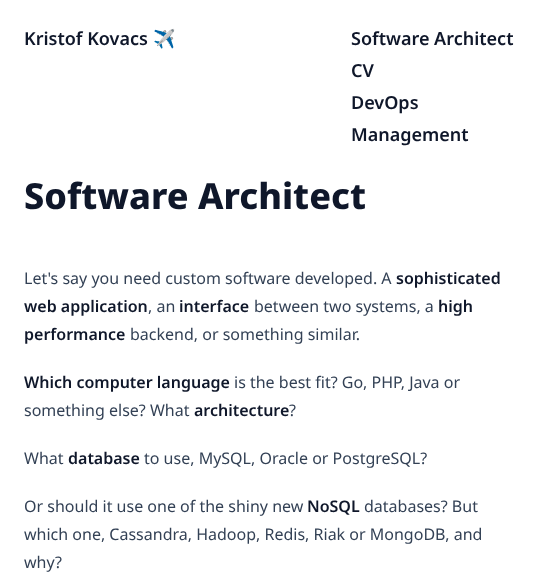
<!DOCTYPE html>
<meta charset="utf-8">
<style>body { margin: 0 } canvas { display: block }</style>
<canvas id="canvas" width="537" height="577"></canvas>
<script>
window.onload = function () {
    const canvas = document.getElementById('canvas');
    const context = canvas.getContext('2d');
    context.miterLimit = 4;
    context.fontKerning = 'normal';

    context.fillStyle = 'rgb(255, 255, 255)';
    context.fillRect(0, 0, 537, 577);
    context.font = '600 18px Noto Sans';
    context.fillStyle = 'rgb(15, 23, 42)';
    context.fillText('Kristof Kovacs', 24, 45);
    context.font = '18px Noto Color Emoji';
    context.fillText('✈️', 153, 45);
    context.font = '600 18px Noto Sans';
    context.fillText('Software Architect', 351, 45);
    context.fillText('CV', 351, 77);
    context.fillText('DevOps', 351, 109);
    context.fillText('Management', 351, 141);
    context.font = '800 36px Noto Sans';
    context.fillText('Software Architect', 24, 209);
    context.font = '16px Noto Sans';
    context.fillStyle = 'rgb(51, 65, 85)';
    context.fillText('Let\'s say you need custom software developed. A', 24, 284);
    context.font = '600 16px Noto Sans';
    context.fillStyle = 'rgb(15, 23, 42)';
    context.fillText('sophisticated', 396, 284);
    context.fillText('web application', 24, 312);
    context.font = '16px Noto Sans';
    context.fillStyle = 'rgb(51, 65, 85)';
    context.fillText(', an', 148, 312);
    context.font = '600 16px Noto Sans';
    context.fillStyle = 'rgb(15, 23, 42)';
    context.fillText('interface', 179, 312);
    context.font = '16px Noto Sans';
    context.fillStyle = 'rgb(51, 65, 85)';
    context.fillText('between two systems, a', 254, 312);
    context.font = '600 16px Noto Sans';
    context.fillStyle = 'rgb(15, 23, 42)';
    context.fillText('high', 438, 312);
    context.fillText('performance', 24, 340);
    context.font = '16px Noto Sans';
    context.fillStyle = 'rgb(51, 65, 85)';
    context.fillText('backend, or something similar.', 130, 340);
    context.font = '600 16px Noto Sans';
    context.fillStyle = 'rgb(15, 23, 42)';
    context.fillText('Which computer language', 24, 388);
    context.font = '16px Noto Sans';
    context.fillStyle = 'rgb(51, 65, 85)';
    context.fillText('is the best fit? Go, PHP, Java or', 234, 388);
    context.fillText('something else? What', 24, 416);
    context.font = '600 16px Noto Sans';
    context.fillStyle = 'rgb(15, 23, 42)';
    context.fillText('architecture', 194, 416);
    context.font = '16px Noto Sans';
    context.fillStyle = 'rgb(51, 65, 85)';
    context.fillText('?', 289, 416);
    context.fillText('What', 24, 464);
    context.font = '600 16px Noto Sans';
    context.fillStyle = 'rgb(15, 23, 42)';
    context.fillText('database', 68, 464);
    context.font = '16px Noto Sans';
    context.fillStyle = 'rgb(51, 65, 85)';
    context.fillText('to use, MySQL, Oracle or PostgreSQL?', 144, 464);
    context.fillText('Or should it use one of the shiny new', 24, 512);
    context.font = '600 16px Noto Sans';
    context.fillStyle = 'rgb(15, 23, 42)';
    context.fillText('NoSQL', 307, 512);
    context.font = '16px Noto Sans';
    context.fillStyle = 'rgb(51, 65, 85)';
    context.fillText('databases? But', 364, 512);
    context.fillText('which one, Cassandra, Hadoop, Redis, Riak or MongoDB, and', 24, 540);
    context.fillText('why?', 24, 568);
};
</script>
